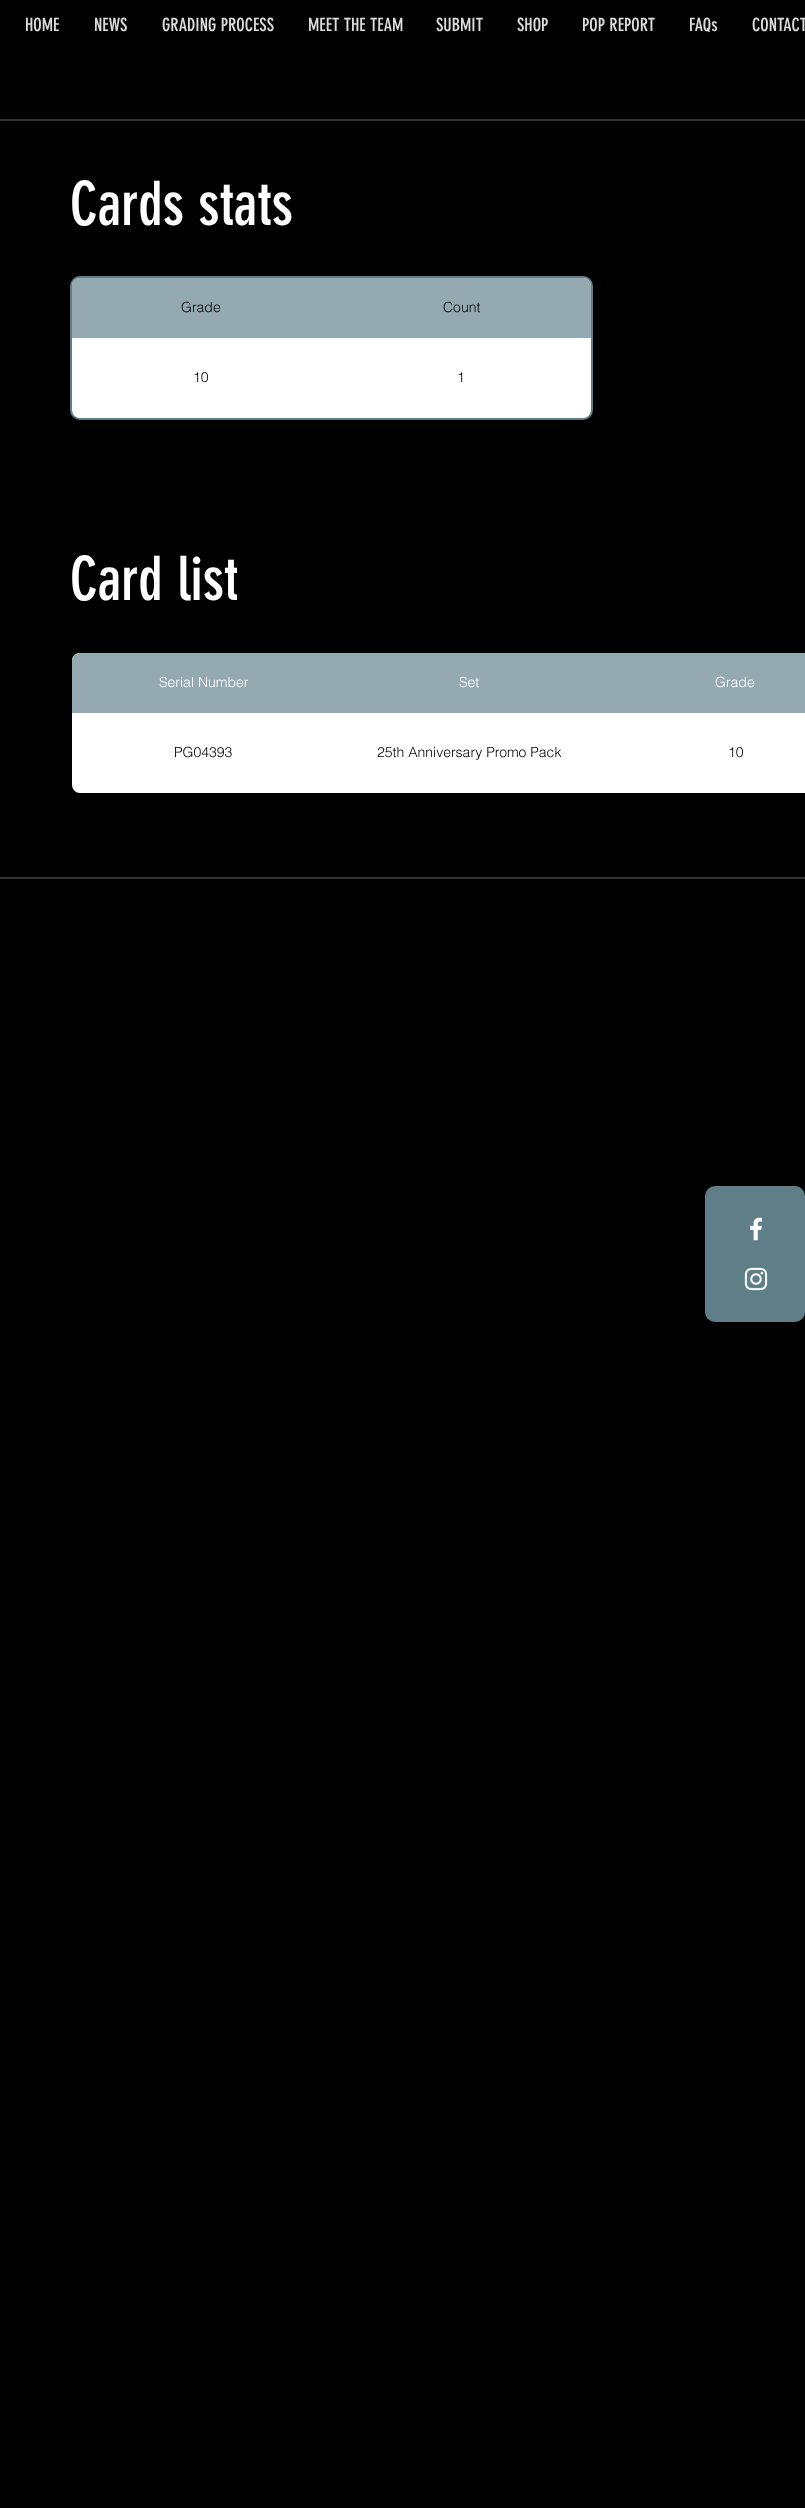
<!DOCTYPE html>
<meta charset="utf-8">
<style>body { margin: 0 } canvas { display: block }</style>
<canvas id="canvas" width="805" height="2508"></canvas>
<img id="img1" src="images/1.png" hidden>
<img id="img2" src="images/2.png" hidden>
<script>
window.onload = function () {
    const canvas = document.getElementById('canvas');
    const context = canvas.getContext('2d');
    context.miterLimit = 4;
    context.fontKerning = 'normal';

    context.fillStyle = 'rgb(0, 0, 0)';
    context.fillRect(0, 0, 805, 2508);
    context.fillStyle = 'rgb(49, 50, 49)';
    context.fillRect(0, 119, 805, 2);
    context.fillStyle = 'rgb(255, 255, 255)';
    context.beginPath();
    context.roundRect(71, 277, 521, 142, 9);
    context.fill();
    context.strokeStyle = 'rgb(95, 126, 136)';
    context.lineWidth = 2;
    context.stroke();
    context.fillStyle = 'rgb(149, 169, 176)';
    context.beginPath();
    context.roundRect(72, 278, 519, 60, [8, 8, 0, 0]);
    context.fill();
    context.fillStyle = 'rgb(255, 255, 255)';
    context.beginPath();
    context.roundRect(71, 652, 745, 142, 9);
    context.fill();
    context.strokeStyle = 'rgb(0, 0, 0)';
    context.stroke();
    context.fillStyle = 'rgb(149, 169, 176)';
    context.beginPath();
    context.moveTo(80, 653);
    context.lineTo(805, 653);
    context.bezierCurveTo(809.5, 653, 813, 656.5, 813, 661);
    context.lineTo(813, 713);
    context.lineTo(72, 713);
    context.lineTo(72, 661);
    context.bezierCurveTo(72, 656.5, 75.5, 653, 80, 653);
    context.closePath();
    context.fill();
    context.fillStyle = 'rgb(49, 50, 49)';
    context.fillRect(0, 877, 805, 2);
    context.fillStyle = 'rgb(95, 126, 136)';
    context.beginPath();
    context.roundRect(705, 1186, 100, 136, 10);
    context.fill();
    context.drawImage(document.getElementById('img1'), 750, 1217, 13, 24);
    context.drawImage(document.getElementById('img2'), 744, 1267, 24, 24);
    context.font = '18px "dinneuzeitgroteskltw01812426"';
    context.fillStyle = 'rgb(219, 220, 219)';
    context.fillText('HOME', 25, 31);
    context.fillText('NEWS', 94, 31);
    context.fillText('GRADING PROCESS', 162, 31);
    context.fillText('MEET THE TEAM', 308, 31);
    context.fillText('SUBMIT', 436, 31);
    context.fillText('SHOP', 517, 31);
    context.fillText('POP REPORT', 582, 31);
    context.fillText('FAQs', 689, 31);
    context.fillText('CONTACT', 752, 31);
    context.font = '60px "dinneuzeitgroteskltw01812426"';
    context.fillStyle = 'rgb(255, 255, 255)';
    context.fillText('Cards stats', 70, 225);
    context.font = '300 14px helvetica';
    context.fillStyle = 'rgb(0, 0, 0)';
    context.fillText('Grade', 181, 312);
    context.fillText('Count', 443, 312);
    context.fillText('10', 193, 382);
    context.fillText('1', 457, 382);
    context.font = '60px "dinneuzeitgroteskltw01812426"';
    context.fillStyle = 'rgb(255, 255, 255)';
    context.fillText('Card list', 70, 600);
    context.font = '300 14px helvetica';
    context.fillText('Serial Number', 159, 687);
    context.fillText('Set', 459, 687);
    context.fillText('Grade', 715, 687);
    context.fillStyle = 'rgb(0, 0, 0)';
    context.fillText('PG04393', 174, 757);
    context.fillText('25th Anniversary Promo Pack', 377, 757);
    context.fillText('10', 728, 757);
};
</script>
